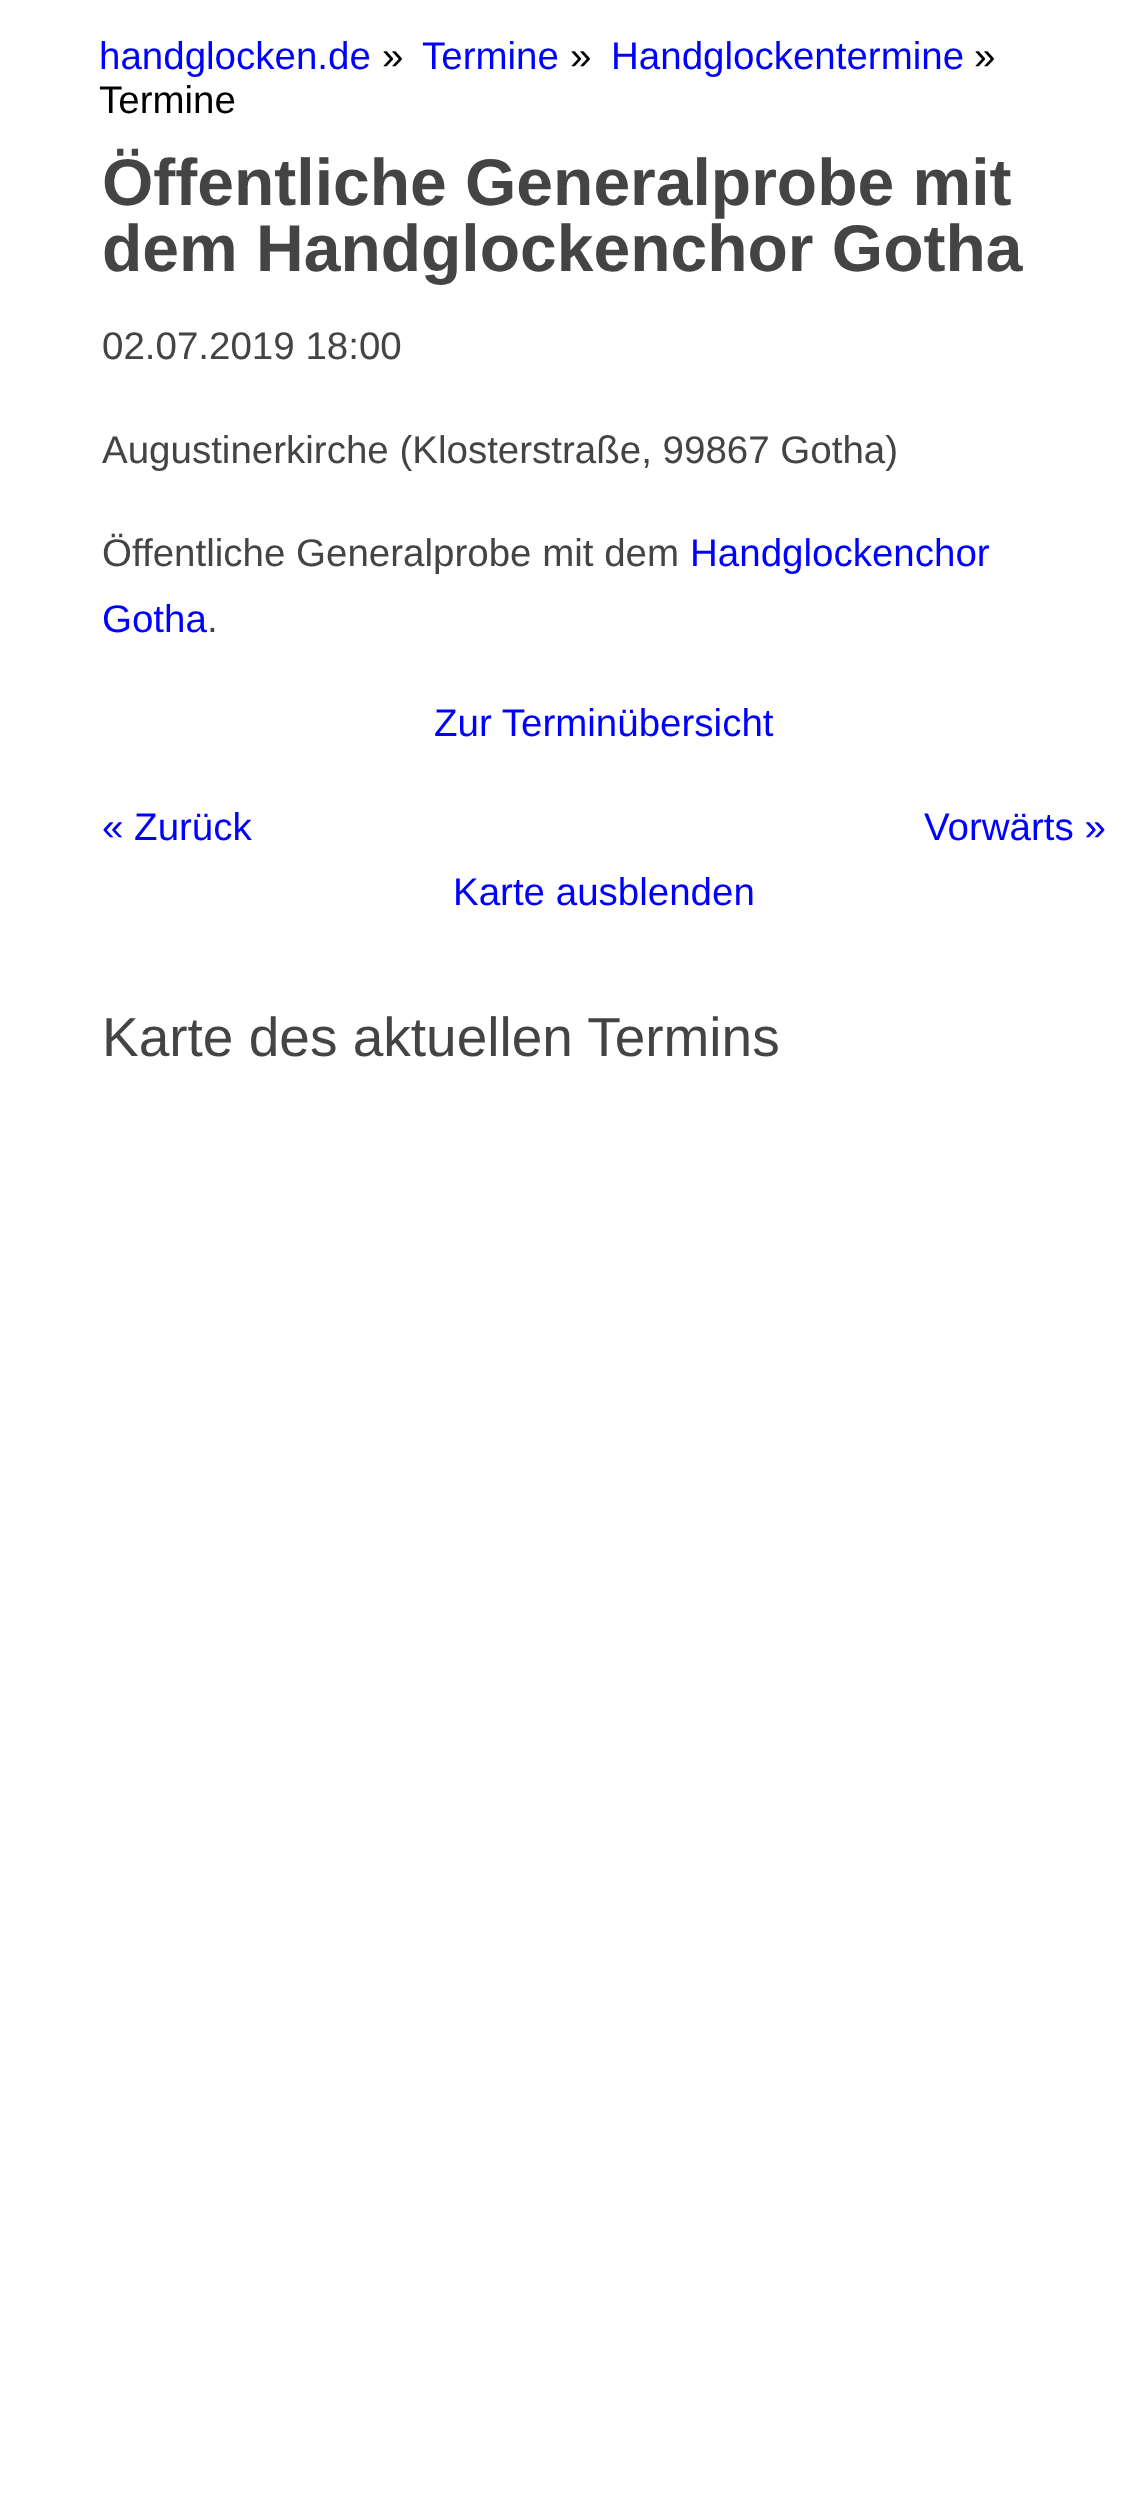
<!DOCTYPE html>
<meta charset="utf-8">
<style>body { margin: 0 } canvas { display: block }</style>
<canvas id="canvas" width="1148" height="2518"></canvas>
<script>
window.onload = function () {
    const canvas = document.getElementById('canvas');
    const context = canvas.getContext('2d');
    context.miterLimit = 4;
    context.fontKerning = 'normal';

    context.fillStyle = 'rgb(255, 255, 255)';
    context.fillRect(0, 0, 1148, 2518);
    context.font = '38.5px Liberation Sans';
    context.fillStyle = 'rgb(0, 0, 255)';
    context.fillText('handglocken.de', 99, 69);
    context.fillStyle = 'rgb(0, 0, 0)';
    context.fillText('»', 382, 69);
    context.fillStyle = 'rgb(0, 0, 255)';
    context.fillText('Termine', 422, 69);
    context.fillStyle = 'rgb(0, 0, 0)';
    context.fillText('»', 570, 69);
    context.fillStyle = 'rgb(0, 0, 255)';
    context.fillText('Handglockentermine', 611, 69);
    context.fillStyle = 'rgb(0, 0, 0)';
    context.fillText('»', 974, 69);
    context.fillText('Termine', 99, 113);
    context.font = 'bold 66px Liberation Sans';
    context.fillStyle = 'rgb(68, 68, 68)';
    context.fillText('Öffentliche Generalprobe mit', 102, 205);
    context.fillText('dem Handglockenchor Gotha', 102, 271);
    context.font = '38.5px Liberation Sans';
    context.fillText('02.07.2019 18:00', 102, 359);
    context.fillText('Augustinerkirche (Klosterstraße, 99867 Gotha)', 102, 463);
    context.fillText('Öffentliche Generalprobe mit dem', 102, 566);
    context.fillStyle = 'rgb(0, 0, 255)';
    context.fillText('Handglockenchor', 690, 566);
    context.fillText('Gotha', 102, 632);
    context.fillStyle = 'rgb(68, 68, 68)';
    context.fillText('.', 207, 632);
    context.fillStyle = 'rgb(0, 0, 255)';
    context.fillText('Zur Terminübersicht', 434, 736);
    context.fillText('« Zurück', 102, 840);
    context.fillText('Vorwärts »', 924, 840);
    context.fillText('Karte ausblenden', 453, 905);
    context.font = '55px Liberation Sans';
    context.fillStyle = 'rgb(68, 68, 68)';
    context.fillText('Karte des aktuellen Termins', 102, 1056);
};
</script>
